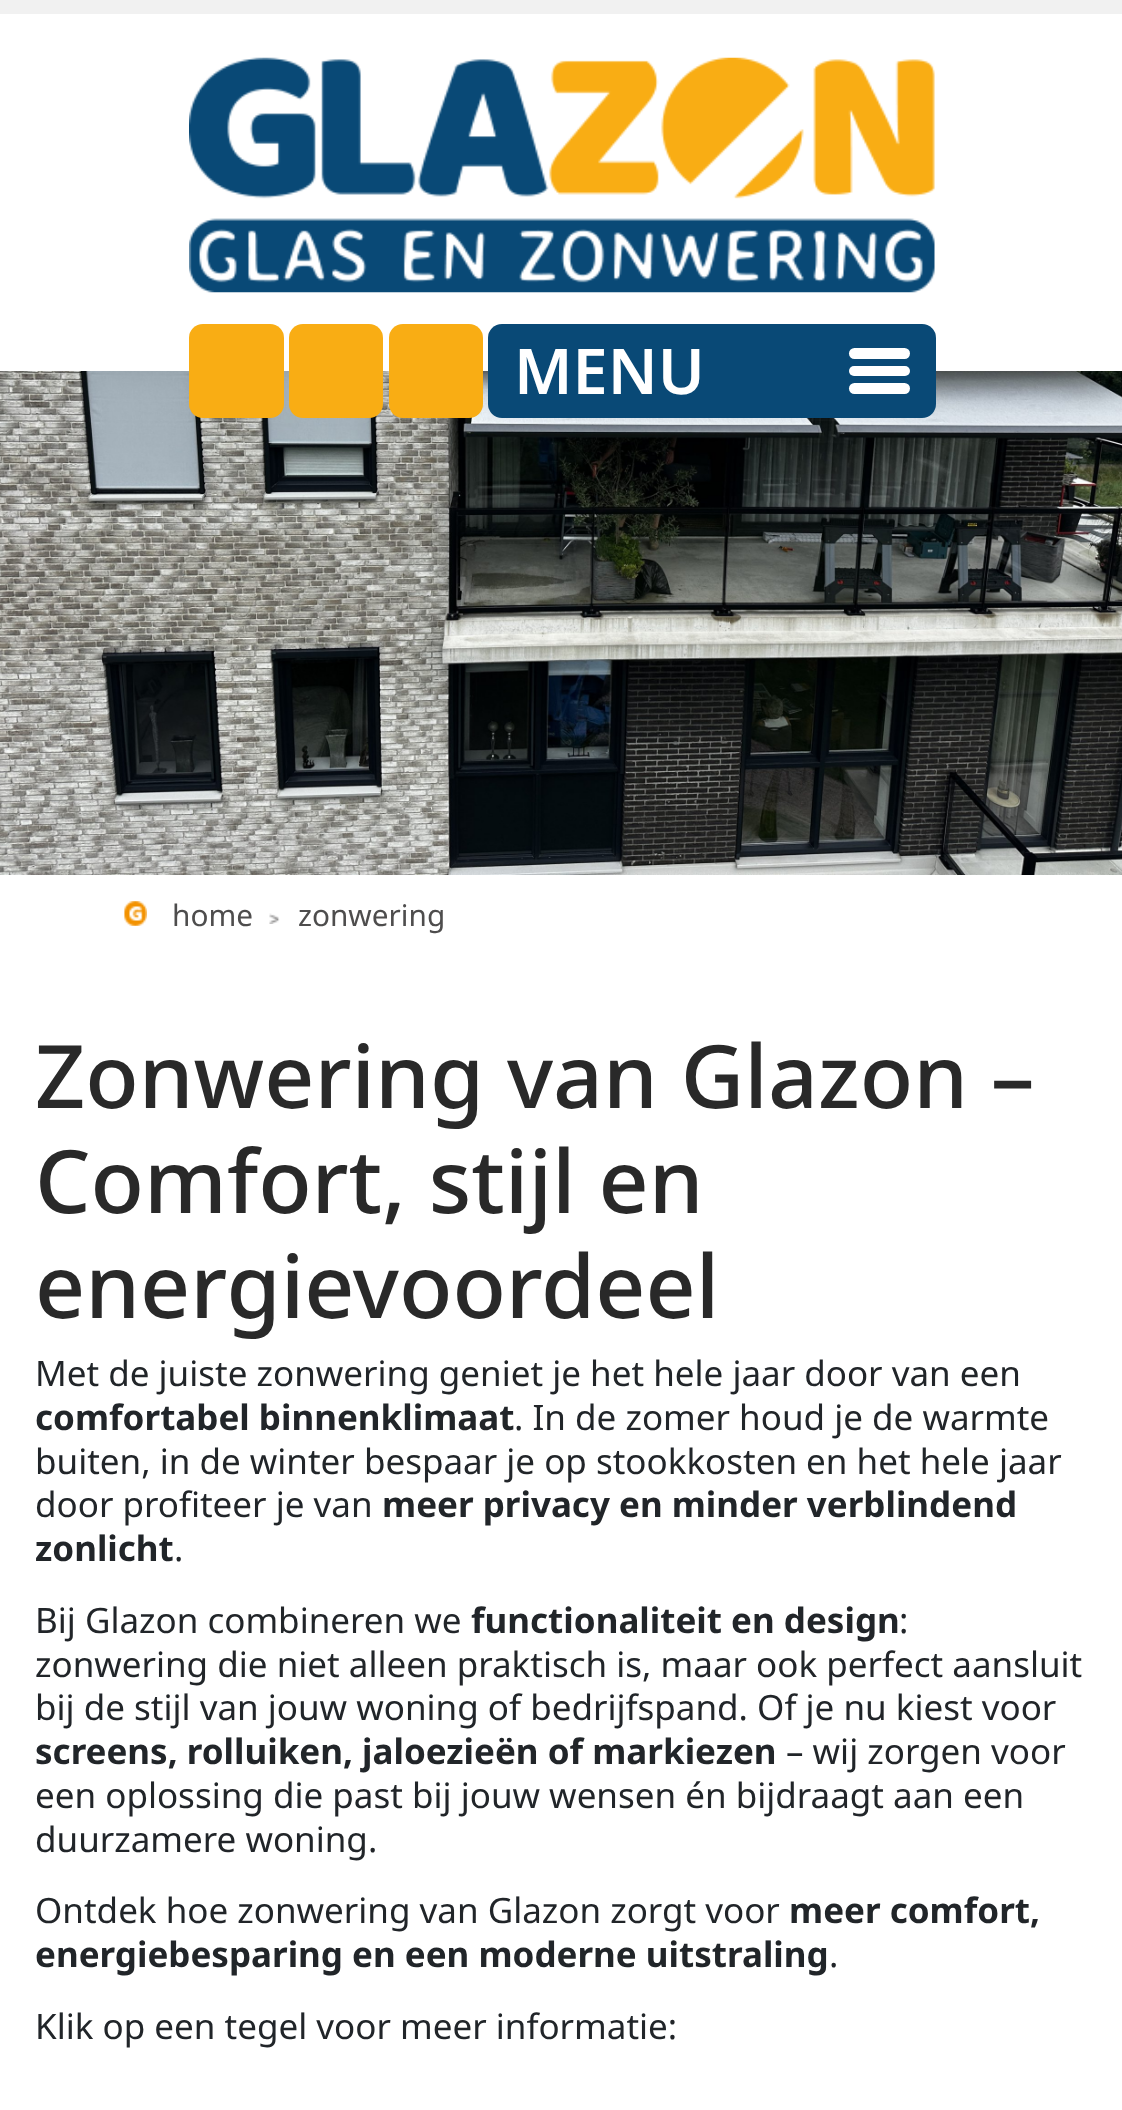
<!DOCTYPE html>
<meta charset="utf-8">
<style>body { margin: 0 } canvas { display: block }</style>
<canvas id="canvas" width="1122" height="2110"></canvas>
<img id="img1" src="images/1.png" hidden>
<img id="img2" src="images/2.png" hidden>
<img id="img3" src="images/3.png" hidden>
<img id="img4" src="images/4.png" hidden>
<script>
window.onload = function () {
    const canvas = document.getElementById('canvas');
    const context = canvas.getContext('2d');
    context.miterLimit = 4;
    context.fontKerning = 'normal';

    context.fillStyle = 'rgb(255, 255, 255)';
    context.fillRect(0, 0, 1122, 2110);
    context.fillStyle = 'rgb(241, 241, 241)';
    context.fillRect(0, 0, 1122, 14);
    context.drawImage(document.getElementById('img1'), 189, 57, 746, 236);
    context.drawImage(document.getElementById('img2'), 0, 371, 1122, 504);
    context.fillStyle = 'rgb(249, 173, 20)';
    context.beginPath();
    context.roundRect(189, 324, 95, 94, 14);
    context.fill();
    context.beginPath();
    context.roundRect(289, 324, 94, 94, 14);
    context.fill();
    context.beginPath();
    context.roundRect(389, 324, 94, 94, 14);
    context.fill();
    context.fillStyle = 'rgb(9, 73, 118)';
    context.beginPath();
    context.roundRect(488, 324, 448, 94, 14);
    context.fill();
    context.fillStyle = 'rgb(255, 255, 255)';
    context.beginPath();
    context.roundRect(849, 348, 61, 11, 5.5);
    context.fill();
    context.beginPath();
    context.roundRect(849, 366, 61, 10, 5);
    context.fill();
    context.beginPath();
    context.roundRect(849, 383, 61, 11, 5.5);
    context.fill();
    context.drawImage(document.getElementById('img3'), 124, 901, 23, 25);
    context.drawImage(document.getElementById('img4'), 269, 913, 11, 11);
    context.font = '600 63px Noto Sans';
    context.fillText('MENU', 514, 394);
    context.font = '29.75px Noto Sans';
    context.fillStyle = 'rgb(78, 77, 77)';
    context.fillText('home', 172, 926);
    context.fillText('zonwering', 298, 926);
    context.font = '500 87.5px Noto Sans';
    context.fillStyle = 'rgb(41, 41, 41)';
    context.fillText('Zonwering van Glazon –', 35, 1108);
    context.fillText('Comfort, stijl en', 35, 1213);
    context.fillText('energievoordeel', 35, 1318);
    context.font = '35px Noto Sans';
    context.fillStyle = 'rgb(33, 37, 41)';
    context.fillText('Met de juiste zonwering geniet je het hele jaar door van een', 35, 1386);
    context.font = 'bold 35px Noto Sans';
    context.fillText('comfortabel binnenklimaat', 35, 1430);
    context.font = '35px Noto Sans';
    context.fillText('. In de zomer houd je de warmte', 514, 1430);
    context.fillText('buiten, in de winter bespaar je op stookkosten en het hele jaar', 35, 1474);
    context.fillText('door profiteer je van', 35, 1517);
    context.font = 'bold 35px Noto Sans';
    context.fillText('meer privacy en minder verblindend', 382, 1517);
    context.fillText('zonlicht', 35, 1561);
    context.font = '35px Noto Sans';
    context.fillText('.', 174, 1561);
    context.fillText('Bij Glazon combineren we', 35, 1633);
    context.font = 'bold 35px Noto Sans';
    context.fillText('functionaliteit en design', 471, 1633);
    context.font = '35px Noto Sans';
    context.fillText(':', 899, 1633);
    context.fillText('zonwering die niet alleen praktisch is, maar ook perfect aansluit', 35, 1677);
    context.fillText('bij de stijl van jouw woning of bedrijfspand. Of je nu kiest voor', 35, 1720);
    context.font = 'bold 35px Noto Sans';
    context.fillText('screens, rolluiken, jaloezieën of markiezen', 35, 1764);
    context.font = '35px Noto Sans';
    context.fillText('– wij zorgen voor', 786, 1764);
    context.fillText('een oplossing die past bij jouw wensen én bijdraagt aan een', 35, 1808);
    context.fillText('duurzamere woning.', 35, 1852);
    context.fillText('Ontdek hoe zonwering van Glazon zorgt voor', 35, 1923);
    context.font = 'bold 35px Noto Sans';
    context.fillText('meer comfort,', 789, 1923);
    context.fillText('energiebesparing en een moderne uitstraling', 35, 1967);
    context.font = '35px Noto Sans';
    context.fillText('.', 829, 1967);
    context.fillText('Klik op een tegel voor meer informatie:', 35, 2039);
};
</script>
